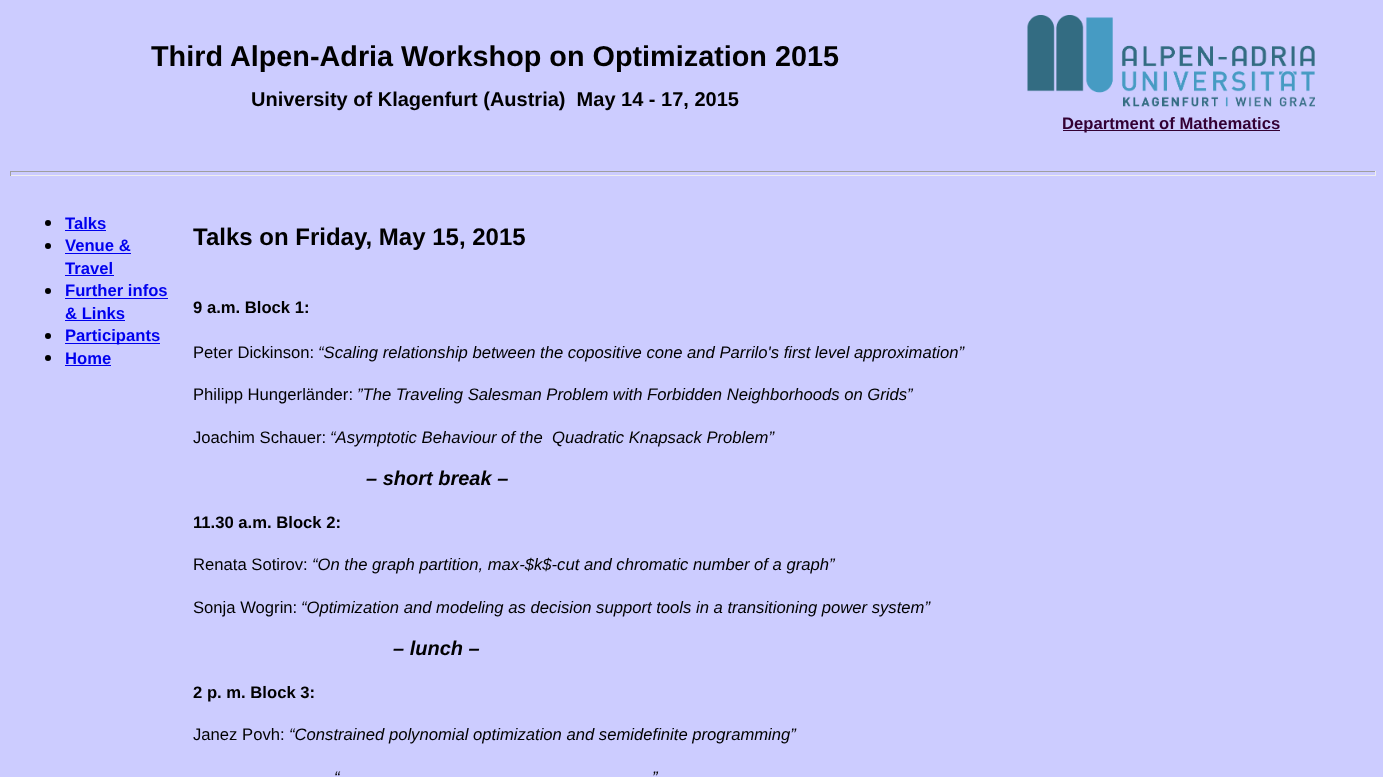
<!DOCTYPE html>
<meta charset="utf-8">
<style>body { margin: 0 } canvas { display: block }</style>
<canvas id="canvas" width="1383" height="777"></canvas>
<img id="img1" src="images/1.png" hidden>
<script>
window.onload = function () {
    const canvas = document.getElementById('canvas');
    const context = canvas.getContext('2d');
    context.miterLimit = 4;
    context.fontKerning = 'normal';

    context.fillStyle = 'rgb(204, 204, 255)';
    context.fillRect(0, 0, 1383, 777);
    context.drawImage(document.getElementById('img1'), 1027, 15, 288, 92);
    context.fillStyle = 'rgb(51, 0, 51)';
    context.fillRect(1063, 130, 217, 1);
    context.fillStyle = 'rgb(159, 159, 159)';
    context.fillRect(10, 171, 1366, 1);
    context.fillStyle = 'rgb(238, 238, 238)';
    context.fillRect(1375, 171, 1, 5);
    context.fillRect(10, 175, 1366, 1);
    context.fillStyle = 'rgb(159, 159, 159)';
    context.fillRect(10, 171, 1, 5);
    context.fillStyle = 'rgb(0, 0, 0)';
    context.beginPath();
    context.arc(48, 223, 3, 0, 2 * Math.PI);
    context.fill();
    context.fillStyle = 'rgb(0, 0, 238)';
    context.fillRect(65, 230, 41, 1);
    context.fillStyle = 'rgb(0, 0, 0)';
    context.beginPath();
    context.arc(48, 246, 3, 0, 2 * Math.PI);
    context.fill();
    context.fillStyle = 'rgb(0, 0, 238)';
    context.fillRect(65, 253, 66, 1);
    context.fillRect(65, 275, 49, 1);
    context.fillStyle = 'rgb(0, 0, 0)';
    context.beginPath();
    context.arc(48, 291, 3, 0, 2 * Math.PI);
    context.fill();
    context.fillStyle = 'rgb(0, 0, 238)';
    context.fillRect(65, 298, 103, 1);
    context.fillRect(65, 320, 60, 1);
    context.fillStyle = 'rgb(0, 0, 0)';
    context.beginPath();
    context.arc(48, 336, 3, 0, 2 * Math.PI);
    context.fill();
    context.fillStyle = 'rgb(0, 0, 238)';
    context.fillRect(65, 343, 95, 1);
    context.fillStyle = 'rgb(0, 0, 0)';
    context.beginPath();
    context.arc(48, 358, 3, 0, 2 * Math.PI);
    context.fill();
    context.fillStyle = 'rgb(0, 0, 238)';
    context.fillRect(65, 365, 46, 1);
    context.font = 'bold 28.8px Liberation Sans';
    context.fillStyle = 'rgb(0, 0, 0)';
    context.fillText('Third Alpen-Adria Workshop on Optimization 2015', 151, 66);
    context.font = 'bold 20px Liberation Sans';
    context.fillText('University of Klagenfurt (Austria)  May 14 - 17, 2015', 251, 106);
    context.font = 'bold 16.65px Liberation Sans';
    context.fillStyle = 'rgb(51, 0, 51)';
    context.fillText('Department of Mathematics', 1062, 129);
    context.fillStyle = 'rgb(0, 0, 238)';
    context.fillText('Talks', 65, 229);
    context.fillText('Venue &', 65, 251);
    context.fillText('Travel', 65, 274);
    context.fillText('Further infos', 65, 296);
    context.fillText('& Links', 65, 319);
    context.fillText('Participants', 65, 341);
    context.fillText('Home', 65, 364);
    context.font = 'bold 24px Liberation Sans';
    context.fillStyle = 'rgb(0, 0, 0)';
    context.fillText('Talks on Friday, May 15, 2015', 193, 245);
    context.font = 'bold 16.65px Liberation Sans';
    context.fillText('9 a.m. Block 1:', 193, 313);
    context.font = '16.65px Liberation Sans';
    context.fillText('Peter Dickinson:', 193, 358);
    context.font = 'italic 16.65px Liberation Sans';
    context.fillText('“Scaling relationship between the copositive cone and Parrilo\'s first level approximation”', 318, 358);
    context.font = '16.65px Liberation Sans';
    context.fillText('Philipp Hungerländer:', 193, 400);
    context.font = 'italic 16.65px Liberation Sans';
    context.fillText('”The Traveling Salesman Problem with Forbidden Neighborhoods on Grids”', 357, 400);
    context.font = '16.65px Liberation Sans';
    context.fillText('Joachim Schauer:', 193, 443);
    context.font = 'italic 16.65px Liberation Sans';
    context.fillText('“Asymptotic Behaviour of the  Quadratic Knapsack Problem”', 330, 443);
    context.font = 'italic bold 20px Liberation Sans';
    context.fillText('– short break –', 366, 485);
    context.font = 'bold 16.65px Liberation Sans';
    context.fillText('11.30 a.m. Block 2:', 193, 528);
    context.font = '16.65px Liberation Sans';
    context.fillText('Renata Sotirov:', 193, 570);
    context.font = 'italic 16.65px Liberation Sans';
    context.fillText('“On the graph partition, max-$k$-cut and chromatic number of a graph”', 312, 570);
    context.font = '16.65px Liberation Sans';
    context.fillText('Sonja Wogrin:', 193, 613);
    context.font = 'italic 16.65px Liberation Sans';
    context.fillText('“Optimization and modeling as decision support tools in a transitioning power system”', 301, 613);
    context.font = 'italic bold 20px Liberation Sans';
    context.fillText('– lunch –', 393, 655);
    context.font = 'bold 16.65px Liberation Sans';
    context.fillText('2 p. m. Block 3:', 193, 698);
    context.font = '16.65px Liberation Sans';
    context.fillText('Janez Povh:', 193, 740);
    context.font = 'italic 16.65px Liberation Sans';
    context.fillText('“Constrained polynomial optimization and semidefinite programming”', 289, 740);
    context.fillText('“', 334, 783);
    context.fillText('”', 652, 783);
};
</script>
